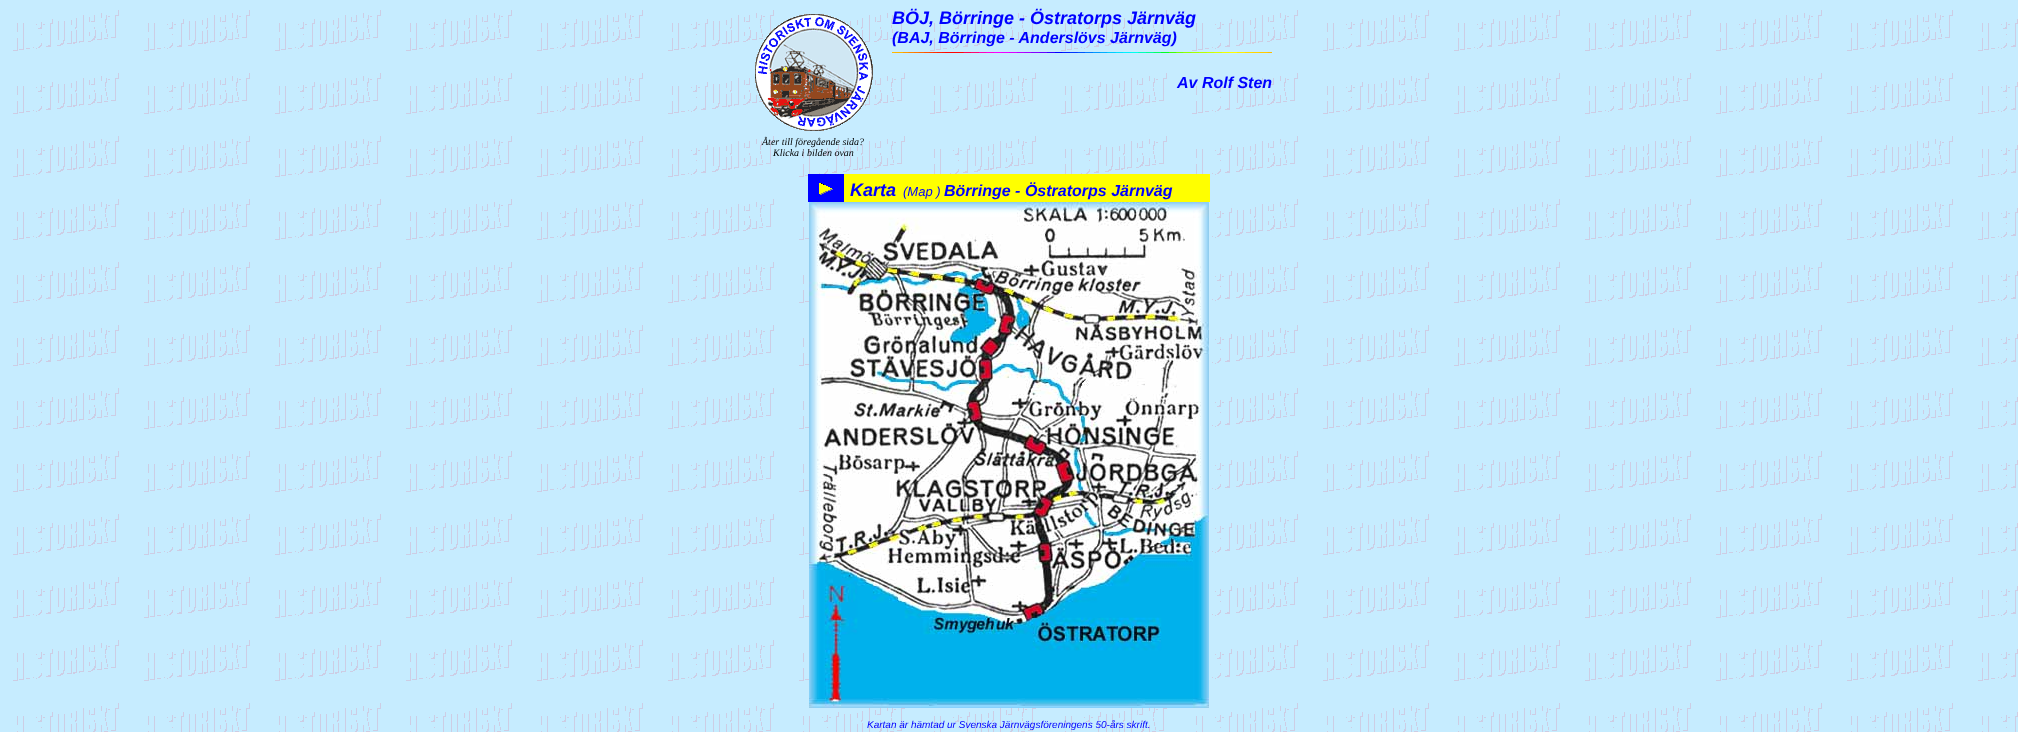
<!DOCTYPE html>
<meta charset="utf-8">
<style>body { margin: 0 } canvas { display: block }</style>
<canvas id="canvas" width="2018" height="732"></canvas>
<img id="img1" src="images/1.png" hidden>
<img id="img2" src="images/2.png" hidden>
<img id="img3" src="images/3.png" hidden>
<img id="img4" src="images/4.png" hidden>
<img id="img5" src="images/5.png" hidden>
<script>
window.onload = function () {
    const canvas = document.getElementById('canvas');
    const context = canvas.getContext('2d');
    context.miterLimit = 4;
    context.fontKerning = 'normal';

    context.fillStyle = 'rgb(198, 236, 255)';
    context.fillRect(0, 0, 2018, 732);
    context.drawImage(document.getElementById('img1'), 13, 10, 2005, 722);
    context.drawImage(document.getElementById('img2'), 892, 52, 380, 1);
    context.drawImage(document.getElementById('img3'), 755, 14, 118, 117);
    context.fillStyle = 'rgb(0, 0, 255)';
    context.fillRect(808, 174, 36, 28);
    context.drawImage(document.getElementById('img4'), 819, 183, 14, 12);
    context.fillStyle = 'rgb(255, 255, 0)';
    context.fillRect(844, 174, 366, 28);
    context.drawImage(document.getElementById('img5'), 809, 202, 400, 506);
    context.font = 'italic bold 18px Liberation Sans';
    context.fillStyle = 'rgb(0, 0, 255)';
    context.fillText('BÖJ, Börringe - Östratorps Järnväg', 892, 24);
    context.font = 'italic bold 16px Liberation Sans';
    context.fillText('(BAJ, Börringe - Anderslövs Järnväg)', 892, 43);
    context.fillText('Av Rolf Sten', 1177, 88);
    context.font = 'italic 10px Liberation Serif';
    context.fillStyle = 'rgb(0, 0, 0)';
    context.fillText('Åter till föregående sida?', 762, 145);
    context.fillText('Klicka i bilden ovan', 773, 156);
    context.font = 'italic bold 18px Liberation Sans';
    context.fillStyle = 'rgb(0, 0, 255)';
    context.fillText('Karta', 850, 196);
    context.font = 'italic 13px Liberation Sans';
    context.fillText('(Map )', 903, 196);
    context.font = 'italic bold 16px Liberation Sans';
    context.fillText('Börringe - Östratorps Järnväg', 944, 196);
    context.font = 'italic 10px Liberation Sans';
    context.fillText('Kartan är hämtad ur Svenska Järnvägsföreningens 50-års skrift.', 867, 728);
};
</script>
